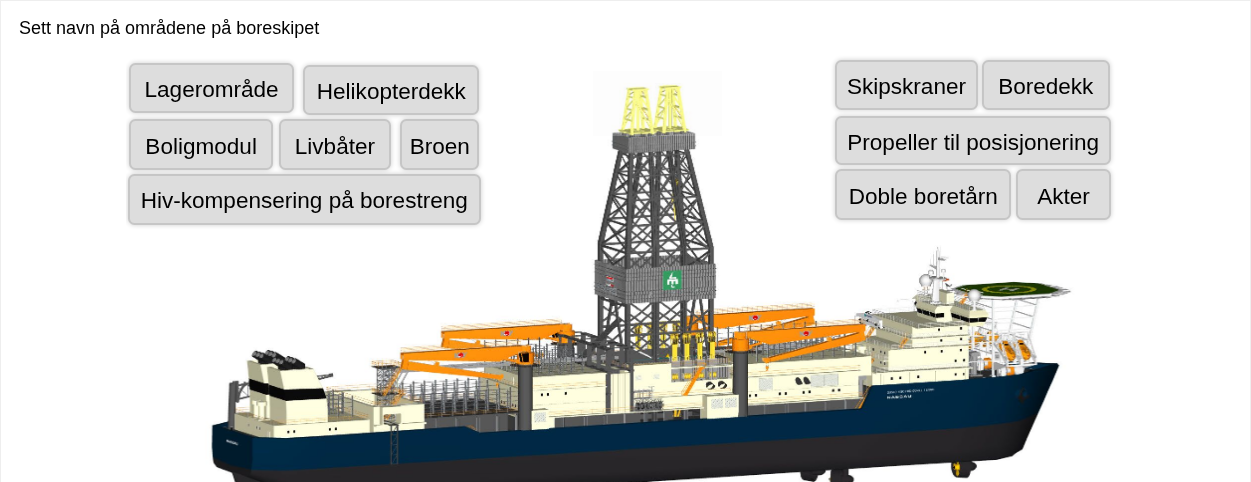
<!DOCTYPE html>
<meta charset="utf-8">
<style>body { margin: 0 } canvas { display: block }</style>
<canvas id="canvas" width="1251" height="482"></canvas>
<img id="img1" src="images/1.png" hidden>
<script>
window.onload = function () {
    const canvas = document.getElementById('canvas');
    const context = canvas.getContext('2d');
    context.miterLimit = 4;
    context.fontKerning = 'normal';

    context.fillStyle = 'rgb(255, 255, 255)';
    context.fillRect(0, 0, 1251, 482);
    context.drawImage(document.getElementById('img1'), 0, 0, 1251, 482);
};
</script>
